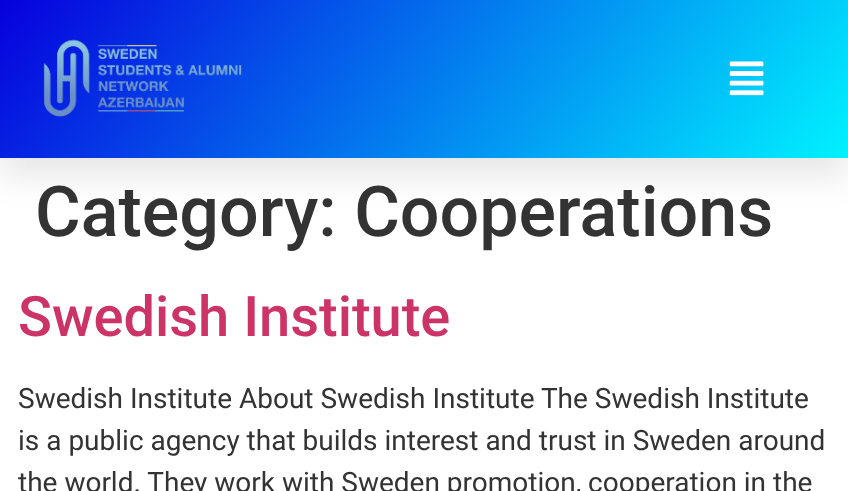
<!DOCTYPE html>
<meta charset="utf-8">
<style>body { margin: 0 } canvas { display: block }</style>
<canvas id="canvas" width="848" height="491"></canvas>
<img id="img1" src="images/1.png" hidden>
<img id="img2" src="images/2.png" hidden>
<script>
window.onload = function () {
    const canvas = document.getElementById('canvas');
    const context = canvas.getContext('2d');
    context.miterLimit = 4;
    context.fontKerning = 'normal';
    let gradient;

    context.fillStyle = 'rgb(255, 255, 255)';
    context.fillRect(0, 0, 848, 491);
    context.fillStyle = 'rgba(0, 0, 0, 0.1)';
    context.filter = 'blur(17.5px)';
    context.beginPath();
    context.rect(0, 18, 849, 157);
    context.fill();
    context.filter = 'none';
    gradient = context.createLinearGradient(137, -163, 712, 320);
    gradient.addColorStop(0, 'rgb(7, 0, 221)');
    gradient.addColorStop(1, 'rgb(0, 242, 255)');
    context.fillStyle = gradient;
    context.fillRect(0, 0, 848, 158);
    context.drawImage(document.getElementById('img1'), 43, 39, 199, 78);
    context.drawImage(document.getElementById('img2'), 729, 61, 35, 35);
    context.font = '500 70px Roboto';
    context.fillStyle = 'rgb(51, 51, 51)';
    context.fillText('Category: Cooperations', 35, 236);
    context.font = '500 56px Roboto';
    context.fillStyle = 'rgb(204, 51, 102)';
    context.fillText('Swedish Institute', 18, 336);
    context.font = '28px Roboto';
    context.fillStyle = 'rgb(51, 51, 51)';
    context.fillText('Swedish Institute About Swedish Institute The Swedish Institute', 18, 408);
    context.fillText('is a public agency that builds interest and trust in Sweden around', 18, 450);
    context.fillText('the world. They work with Sweden promotion, cooperation in the', 18, 492);
};
</script>
